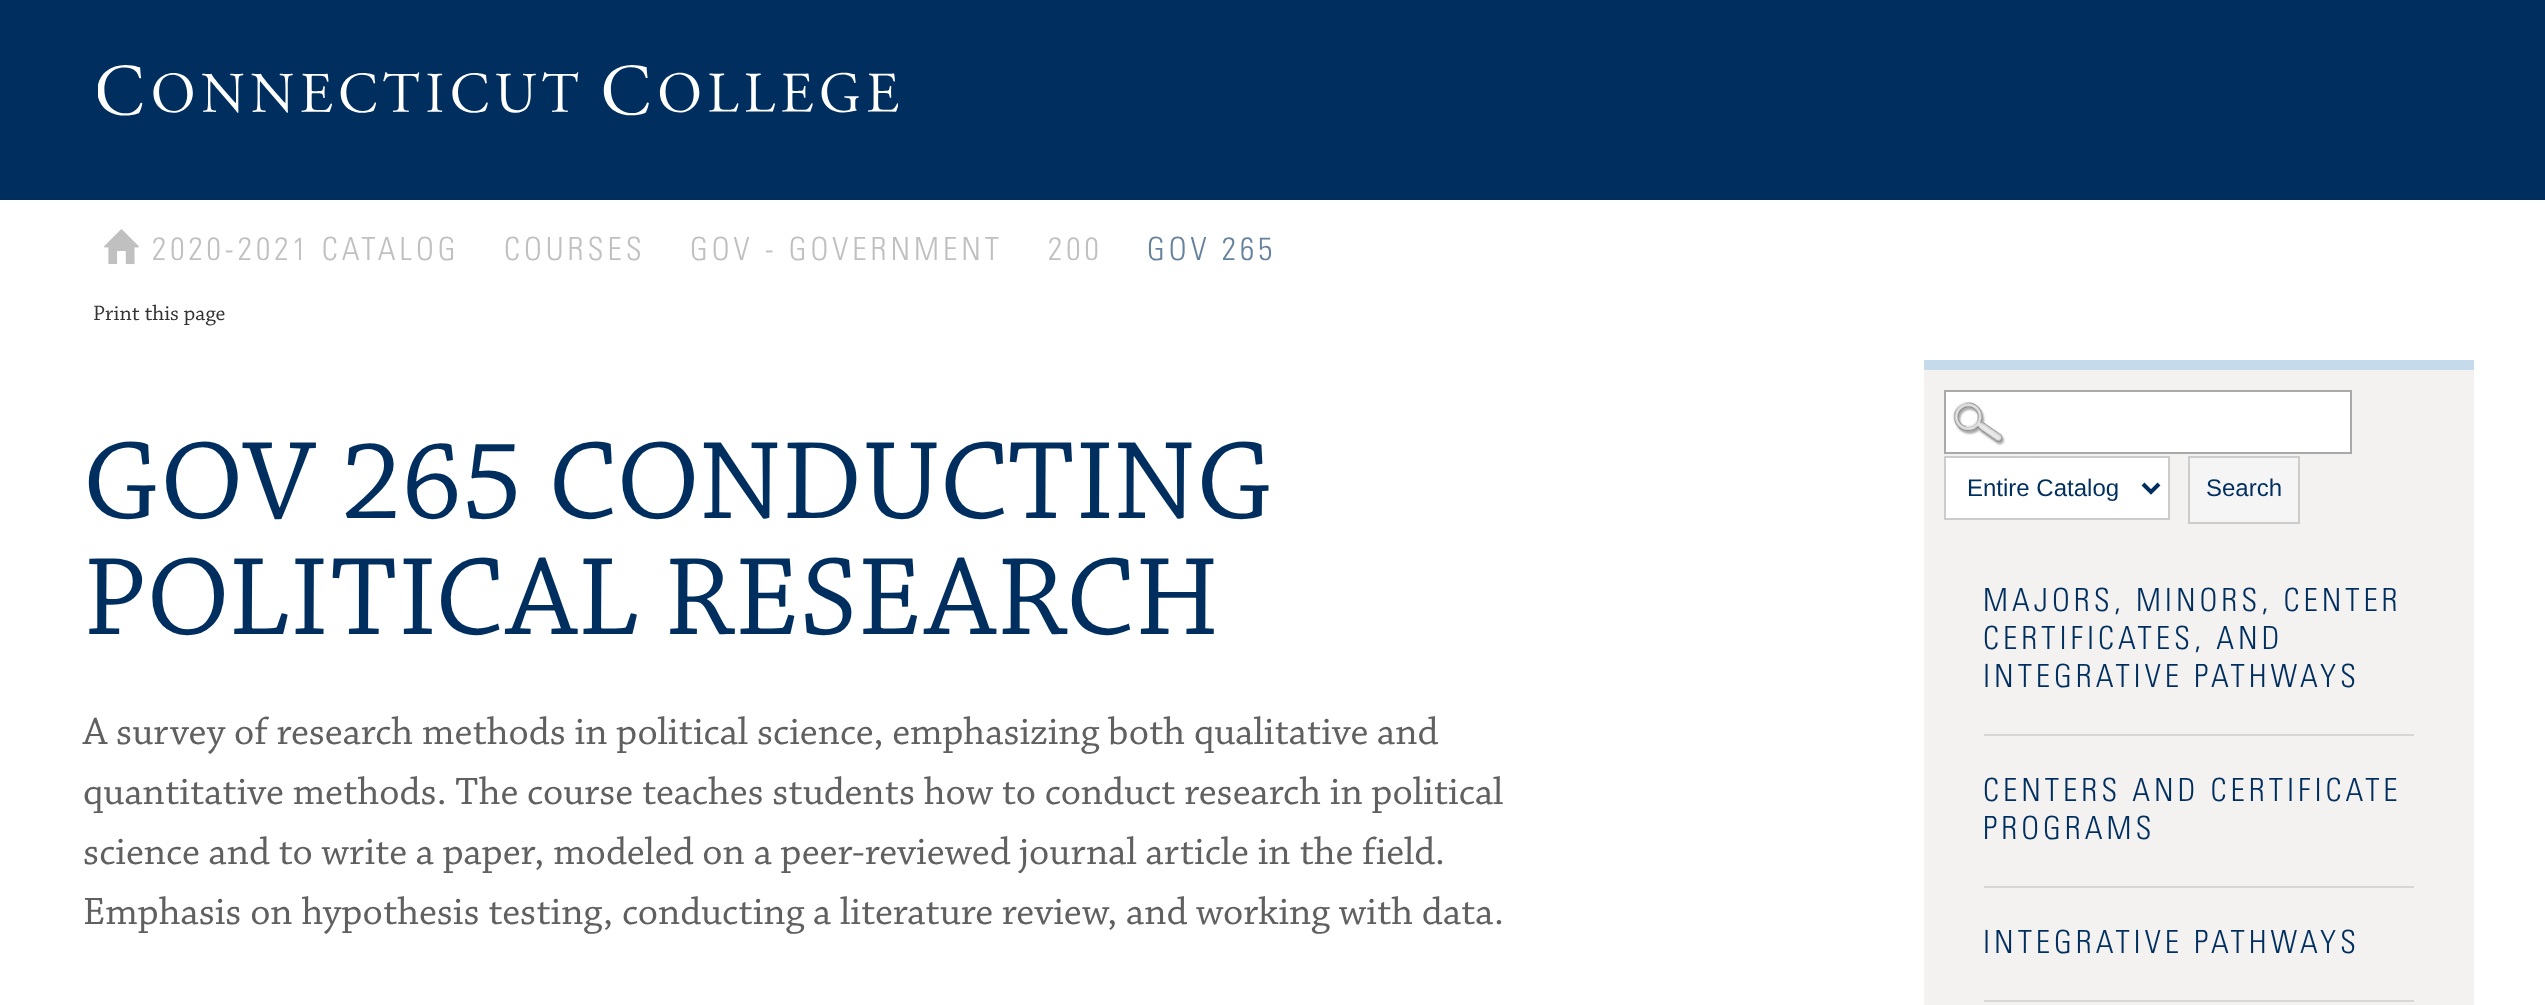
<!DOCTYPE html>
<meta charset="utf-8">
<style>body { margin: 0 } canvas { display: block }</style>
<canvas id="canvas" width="2545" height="1005"></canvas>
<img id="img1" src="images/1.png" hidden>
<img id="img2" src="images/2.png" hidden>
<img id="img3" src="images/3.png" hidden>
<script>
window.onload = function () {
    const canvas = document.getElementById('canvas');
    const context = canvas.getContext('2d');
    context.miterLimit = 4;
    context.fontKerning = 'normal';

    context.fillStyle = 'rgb(255, 255, 255)';
    context.fillRect(0, 0, 2545, 1005);
    context.fillStyle = 'rgb(0, 47, 95)';
    context.fillRect(0, 0, 2545, 200);
    context.drawImage(document.getElementById('img1'), 98, 65, 800, 51);
    context.drawImage(document.getElementById('img2'), 104, 229, 35, 36);
    context.fillStyle = 'rgb(244, 242, 240)';
    context.fillRect(1924, 370, 550, 635);
    context.fillStyle = 'rgb(197, 219, 236)';
    context.fillRect(1924, 360, 550, 10);
    context.fillStyle = 'rgb(255, 255, 255)';
    context.fillRect(1946, 392, 404, 60);
    context.drawImage(document.getElementById('img3'), 1952, 401, 54, 45);
    context.strokeStyle = 'rgb(169, 169, 169)';
    context.lineWidth = 2;
    context.strokeRect(1945, 391, 406, 62);
    context.beginPath();
    context.rect(1945, 457, 224, 62);
    context.fill();
    context.strokeStyle = 'rgb(204, 204, 204)';
    context.stroke();
    context.beginPath();
    context.moveTo(2143, 484);
    context.lineTo(2151, 492);
    context.lineTo(2159, 484);
    context.strokeStyle = 'rgb(0, 47, 95)';
    context.lineWidth = 4;
    context.stroke();
    context.fillStyle = 'rgb(245, 245, 245)';
    context.beginPath();
    context.rect(2189, 457, 110, 66);
    context.fill();
    context.strokeStyle = 'rgb(204, 204, 204)';
    context.lineWidth = 2;
    context.stroke();
    context.fillStyle = 'rgb(216, 215, 214)';
    context.fillRect(1984, 734, 430, 2);
    context.fillRect(1984, 886, 430, 2);
    context.fillRect(1984, 1000, 430, 2);
    context.letterSpacing = '4px';
    context.font = '300 32px "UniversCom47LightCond"';
    context.fillStyle = 'rgb(192, 192, 192)';
    context.fillText('2020-2021 CATALOG', 152, 260);
    context.fillText('COURSES', 504, 260);
    context.fillText('GOV - GOVERNMENT', 690, 260);
    context.fillText('200', 1048, 260);
    context.fillStyle = 'rgb(102, 130, 159)';
    context.fillText('GOV 265', 1147, 260);
    context.letterSpacing = '0px';
    context.font = '22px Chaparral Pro';
    context.fillStyle = 'rgb(51, 51, 51)';
    context.fillText('Print this page', 93, 320);
    context.font = '116px Chaparral Pro';
    context.fillStyle = 'rgb(0, 47, 95)';
    context.fillText('GOV 265 CONDUCTING', 83, 518);
    context.fillText('POLITICAL RESEARCH', 83, 634);
    context.font = '40px Chaparral Pro';
    context.fillStyle = 'rgb(97, 96, 96)';
    context.fillText('A survey of research methods in political science, emphasizing both qualitative and', 83, 744);
    context.fillText('quantitative methods. The course teaches students how to conduct research in political', 83, 804);
    context.fillText('science and to write a paper, modeled on a peer-reviewed journal article in the field.', 83, 864);
    context.fillText('Emphasis on hypothesis testing, conducting a literature review, and working with data.', 83, 924);
    context.font = '24px Liberation Sans';
    context.fillStyle = 'rgb(0, 47, 95)';
    context.fillText('Entire Catalog', 1967, 496);
    context.fillText('Search', 2206, 496);
    context.letterSpacing = '4px';
    context.font = '300 32px "UniversCom47LightCond"';
    context.fillText('MAJORS, MINORS, CENTER', 1983, 611);
    context.fillText('CERTIFICATES, AND', 1983, 649);
    context.fillText('INTEGRATIVE PATHWAYS', 1983, 687);
    context.fillText('CENTERS AND CERTIFICATE', 1983, 801);
    context.fillText('PROGRAMS', 1983, 839);
    context.fillText('INTEGRATIVE PATHWAYS', 1983, 953);
};
</script>
